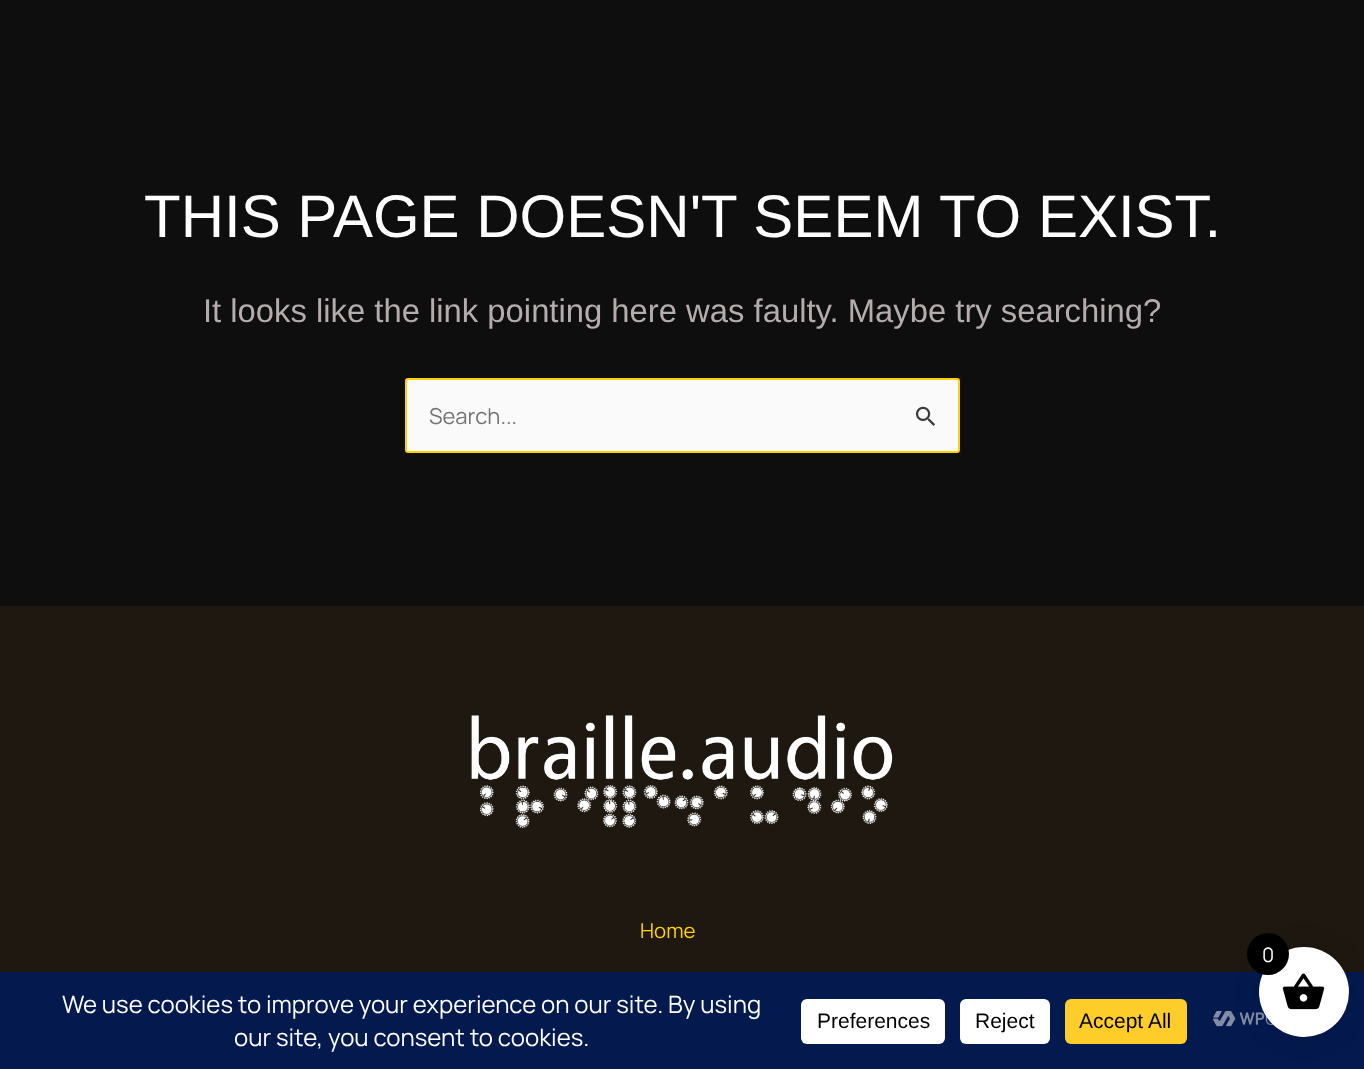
<!DOCTYPE html>
<meta charset="utf-8">
<style>body { margin: 0 } canvas { display: block }</style>
<canvas id="canvas" width="1364" height="1069"></canvas>
<img id="img1" src="images/1.png" hidden>
<img id="img2" src="images/2.png" hidden>
<img id="img3" src="images/4.png" hidden>
<img id="img4" src="images/3.png" hidden>
<script>
window.onload = function () {
    const canvas = document.getElementById('canvas');
    const context = canvas.getContext('2d');
    context.miterLimit = 4;
    context.fontKerning = 'normal';

    context.fillStyle = 'rgb(15, 14, 14)';
    context.fillRect(0, 0, 1364, 1069);
    context.fillStyle = 'rgb(250, 250, 250)';
    context.beginPath();
    context.roundRect(406, 379, 553, 73, 2);
    context.fill();
    context.strokeStyle = 'rgb(255, 210, 0)';
    context.lineWidth = 2;
    context.stroke();
    context.drawImage(document.getElementById('img1'), 916, 406, 19, 20);
    context.fillStyle = 'rgb(30, 24, 16)';
    context.fillRect(0, 606, 1364, 366);
    context.drawImage(document.getElementById('img2'), 471, 715, 422, 114);
    context.fillStyle = 'rgb(4, 25, 78)';
    context.fillRect(0, 972, 1364, 97);
    context.drawImage(document.getElementById('img3'), 1213, 1011, 61, 16);
    context.fillStyle = 'rgba(0, 0, 0, 0.1)';
    context.filter = 'blur(11px)';
    context.beginPath();
    context.roundRect(1256, 944, 96, 96, 48);
    context.fill();
    context.filter = 'none';
    context.fillStyle = 'rgb(255, 255, 255)';
    context.beginPath();
    context.arc(1304, 992, 45, 0, 2 * Math.PI);
    context.fill();
    context.drawImage(document.getElementById('img4'), 1282, 973, 43, 37);
    context.fillStyle = 'rgb(0, 0, 0)';
    context.beginPath();
    context.arc(1268, 954, 21, 0, 2 * Math.PI);
    context.fill();
    context.fillStyle = 'rgb(255, 255, 255)';
    context.beginPath();
    context.roundRect(801, 999, 144, 45, 6);
    context.fill();
    context.beginPath();
    context.roundRect(960, 999, 90, 45, 6);
    context.fill();
    context.fillStyle = 'rgb(255, 205, 42)';
    context.beginPath();
    context.roundRect(1065, 999, 122, 45, 6);
    context.fill();
    context.font = '60px Liberation Sans';
    context.fillStyle = 'rgb(255, 255, 255)';
    context.fillText('THIS PAGE DOESN\'T SEEM TO EXIST.', 144, 237);
    context.font = '32.8px Liberation Sans';
    context.fillStyle = 'rgb(181, 173, 173)';
    context.fillText('It looks like the link pointing here was faulty. Maybe try searching?', 203, 322);
    context.font = '22px Manrope';
    context.fillStyle = 'rgb(117, 117, 117)';
    context.fillText('Search...', 429, 424);
    context.font = '20.5px Manrope';
    context.fillStyle = 'rgb(255, 210, 0)';
    context.fillText('Home', 640, 938);
    context.font = '20px Manrope';
    context.fillStyle = 'rgb(255, 255, 255)';
    context.fillText('0', 1262, 962);
    context.font = '24px Manrope';
    context.fillText('We use cookies to improve your experience on our site. By using', 62, 1013);
    context.fillText('our site, you consent to cookies.', 234, 1046);
    context.font = '21px Liberation Sans';
    context.fillStyle = 'rgb(0, 0, 0)';
    context.fillText('Preferences', 817, 1028);
    context.fillText('Reject', 975, 1028);
    context.fillText('Accept All', 1079, 1028);
};
</script>
